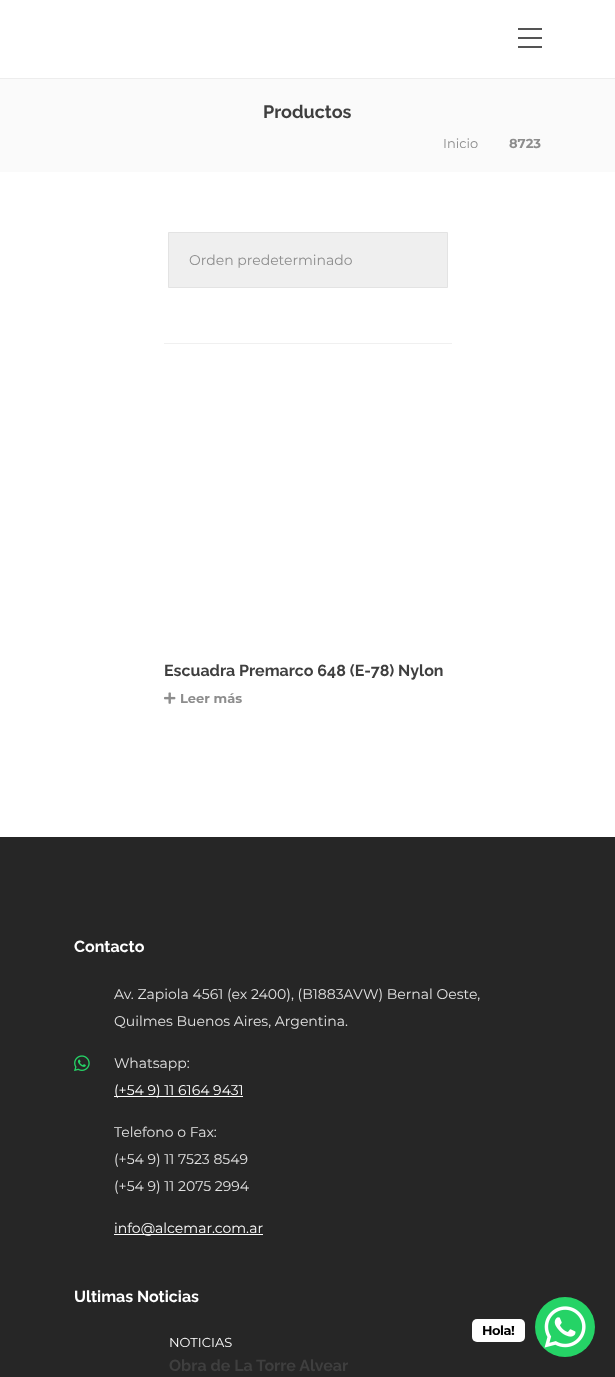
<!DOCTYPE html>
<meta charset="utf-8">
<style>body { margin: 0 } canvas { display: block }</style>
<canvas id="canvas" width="615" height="1377"></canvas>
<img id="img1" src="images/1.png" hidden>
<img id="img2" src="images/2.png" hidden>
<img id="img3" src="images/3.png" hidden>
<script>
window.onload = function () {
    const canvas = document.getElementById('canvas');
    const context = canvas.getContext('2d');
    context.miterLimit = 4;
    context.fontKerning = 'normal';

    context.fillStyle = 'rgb(255, 255, 255)';
    context.fillRect(0, 0, 615, 1377);
    context.fillStyle = 'rgb(237, 237, 237)';
    context.fillRect(0, 78, 615, 1);
    context.fillStyle = 'rgb(84, 84, 84)';
    context.fillRect(518, 37, 24, 2);
    context.fillRect(518, 28, 24, 2);
    context.fillRect(518, 46, 24, 2);
    context.fillStyle = 'rgb(250, 250, 250)';
    context.fillRect(0, 79, 615, 93);
    context.fillStyle = 'rgb(239, 239, 239)';
    context.beginPath();
    context.rect(168.5, 232.5, 279, 55);
    context.fill();
    context.strokeStyle = 'rgb(227, 227, 227)';
    context.stroke();
    context.fillStyle = 'rgb(240, 240, 240)';
    context.fillRect(164, 343, 288, 1);
    context.drawImage(document.getElementById('img1'), 164, 692, 12, 12);
    context.fillStyle = 'rgb(38, 38, 38)';
    context.fillRect(0, 837, 615, 540);
    context.drawImage(document.getElementById('img2'), 74, 1055, 16, 17);
    context.fillStyle = 'rgb(255, 255, 255)';
    context.fillRect(114, 1096, 129, 1);
    context.fillRect(114, 1234, 149, 1);
    context.beginPath();
    context.roundRect(472, 1319, 53, 23, 5);
    context.fill();
    context.fillStyle = 'rgb(37, 211, 102)';
    context.beginPath();
    context.arc(565, 1327, 30, 0, 2 * Math.PI);
    context.fill();
    context.drawImage(document.getElementById('img3'), 544, 1306, 42, 42);
    context.font = 'bold 18px Raleway';
    context.fillStyle = 'rgb(63, 63, 63)';
    context.fillText('Productos', 263, 118);
    context.font = '13px Montserrat';
    context.fillStyle = 'rgb(141, 141, 141)';
    context.fillText('Inicio', 443, 148);
    context.font = '100 13px Montserrat';
    context.fillText('8723', 509, 148);
    context.font = '14px Montserrat';
    context.fillText('Orden predeterminado', 189, 265);
    context.font = 'bold 16px Raleway';
    context.fillStyle = 'rgb(63, 63, 63)';
    context.fillText('Escuadra Premarco 648 (E-78) Nylon', 164, 676);
    context.font = '100 13px Montserrat';
    context.fillStyle = 'rgb(141, 141, 141)';
    context.fillText('Leer más', 180, 703);
    context.font = 'bold 16px Raleway';
    context.fillStyle = 'rgb(255, 255, 255)';
    context.fillText('Contacto', 74, 952);
    context.font = '14px Montserrat';
    context.fillStyle = 'rgb(227, 227, 227)';
    context.fillText('Av. Zapiola 4561 (ex 2400), (B1883AVW) Bernal Oeste,', 114, 999);
    context.fillText('Quilmes Buenos Aires, Argentina.', 114, 1026);
    context.fillText('Whatsapp:', 114, 1068);
    context.fillStyle = 'rgb(255, 255, 255)';
    context.fillText('(+54 9) 11 6164 9431', 114, 1095);
    context.fillStyle = 'rgb(227, 227, 227)';
    context.fillText('Telefono o Fax:', 114, 1137);
    context.fillText('(+54 9) 11 7523 8549', 114, 1164);
    context.fillText('(+54 9) 11 2075 2994', 114, 1191);
    context.fillStyle = 'rgb(255, 255, 255)';
    context.fillText('info@alcemar.com.ar', 114, 1233);
    context.font = 'bold 16px Raleway';
    context.fillText('Ultimas Noticias', 74, 1302);
    context.font = '13px Montserrat';
    context.fillText('NOTICIAS', 169, 1347);
    context.font = 'bold 16px Raleway';
    context.fillStyle = 'rgb(63, 63, 63)';
    context.fillText('Obra de La Torre Alvear', 169, 1371);
    context.letterSpacing = '-0.5px';
    context.font = '100 13px Montserrat';
    context.fillStyle = 'rgb(0, 0, 0)';
    context.fillText('Hola!', 482, 1335);
};
</script>
